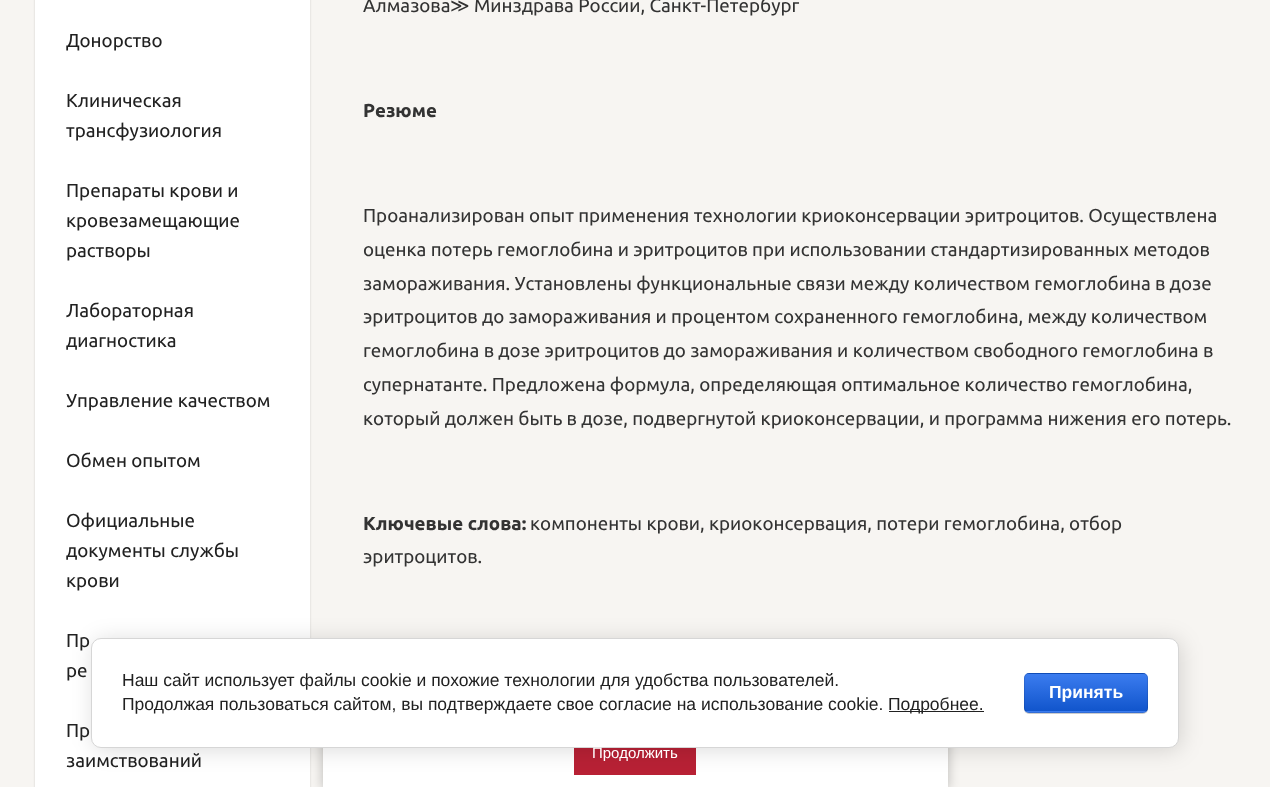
<!DOCTYPE html>
<meta charset="utf-8">
<style>body { margin: 0 } canvas { display: block }</style>
<canvas id="canvas" width="1270" height="787"></canvas>
<script>
window.onload = function () {
    const canvas = document.getElementById('canvas');
    const context = canvas.getContext('2d');
    context.miterLimit = 4;
    context.fontKerning = 'normal';
    let gradient;

    context.fillStyle = 'rgb(247, 245, 242)';
    context.fillRect(0, 0, 1270, 787);
    context.fillStyle = 'rgba(0, 0, 0, 0.15)';
    context.filter = 'blur(1px)';
    context.beginPath();
    context.roundRect(35, -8, 275, 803, 5);
    context.fill();
    context.filter = 'none';
    context.fillStyle = 'rgb(255, 255, 255)';
    context.fillRect(35, 0, 275, 787);
    context.fillStyle = 'rgba(0, 0, 0, 0.25)';
    context.filter = 'blur(6px)';
    context.beginPath();
    context.rect(323, 653, 625, 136);
    context.fill();
    context.filter = 'none';
    context.fillStyle = 'rgb(255, 255, 255)';
    context.fillRect(323, 748, 625, 39);
    context.fillStyle = 'rgb(184, 33, 53)';
    context.fillRect(574, 748, 122, 27);
    context.fillStyle = 'rgba(0, 0, 0, 0.14)';
    context.filter = 'blur(11px)';
    context.beginPath();
    context.roundRect(94, 640, 1087, 110, 10);
    context.fill();
    context.filter = 'none';
    context.fillStyle = 'rgb(255, 255, 255)';
    context.beginPath();
    context.roundRect(91.5, 638.5, 1087, 109, 9.5);
    context.fill();
    context.strokeStyle = 'rgb(214, 214, 214)';
    context.stroke();
    context.fillStyle = 'rgb(33, 33, 33)';
    context.fillRect(889, 711, 95, 1);
    context.fillStyle = 'rgba(0, 0, 0, 0.2)';
    context.filter = 'blur(0.5px)';
    context.beginPath();
    context.roundRect(1024, 674, 124, 40, 5);
    context.fill();
    context.filter = 'none';
    context.save();
    context.beginPath();
    context.roundRect(1024, 673, 124, 40, 5);
    context.clip();
    gradient = context.createLinearGradient(1086, 636, 1086, 674);
    gradient.addColorStop(0, 'rgb(59, 124, 239)');
    gradient.addColorStop(1, 'rgb(17, 85, 204)');
    context.fillStyle = gradient;
    context.fillRect(1024, 673, 124, 1);
    gradient = context.createLinearGradient(1086, 674, 1086, 711);
    gradient.addColorStop(0, 'rgb(59, 124, 239)');
    gradient.addColorStop(1, 'rgb(17, 85, 204)');
    context.fillStyle = gradient;
    context.fillRect(1024, 674, 124, 37);
    gradient = context.createLinearGradient(1086, 711, 1086, 749);
    gradient.addColorStop(0, 'rgb(59, 124, 239)');
    gradient.addColorStop(1, 'rgb(17, 85, 204)');
    context.fillStyle = gradient;
    context.fillRect(1024, 711, 124, 2);
    context.restore();
    context.beginPath();
    context.roundRect(1024.5, 673.5, 123, 39, 4.5);
    context.strokeStyle = 'rgba(0, 0, 0, 0.1)';
    context.stroke();
    context.font = '18.75px Ubuntu';
    context.fillStyle = 'rgb(33, 33, 33)';
    context.fillText('Донорство', 66, 47);
    context.fillText('Клиническая', 66, 107);
    context.fillText('трансфузиология', 66, 137);
    context.fillText('Препараты крови и', 66, 197);
    context.fillText('кровезамещающие', 66, 227);
    context.fillText('растворы', 66, 257);
    context.fillText('Лабораторная', 66, 317);
    context.fillText('диагностика', 66, 347);
    context.fillText('Управление качеством', 66, 407);
    context.fillText('Обмен опытом', 66, 467);
    context.fillText('Официальные', 66, 527);
    context.fillText('документы службы', 66, 557);
    context.fillText('крови', 66, 587);
    context.fillText('Пр', 66, 647);
    context.fillText('ре', 66, 677);
    context.fillText('Пр', 66, 737);
    context.fillText('заимствований', 66, 767);
    context.fillStyle = 'rgb(51, 51, 51)';
    context.fillText('Алмазова', 363, 12);
    context.font = '18.75px DejaVu Sans';
    context.fillText('≫', 450, 12);
    context.font = '18.75px Ubuntu';
    context.fillText('Минздрава России, Санкт-Петербург', 474, 12);
    context.font = 'bold 18.75px Ubuntu';
    context.fillText('Резюме', 363, 117);
    context.font = '18.75px Ubuntu';
    context.fillText('Проанализирован опыт применения технологии криоконсервации эритроцитов. Осуществлена', 363, 222);
    context.fillText('оценка потерь гемоглобина и эритроцитов при использовании стандартизированных методов', 363, 256);
    context.fillText('замораживания. Установлены функциональные связи между количеством гемоглобина в дозе', 363, 290);
    context.fillText('эритроцитов до замораживания и процентом сохраненного гемоглобина, между количеством', 363, 323);
    context.fillText('гемоглобина в дозе эритроцитов до замораживания и количеством свободного гемоглобина в', 363, 357);
    context.fillText('супернатанте. Предложена формула, определяющая оптимальное количество гемоглобина,', 363, 391);
    context.fillText('который должен быть в дозе, подвергнутой криоконсервации, и программа нижения его потерь.', 363, 425);
    context.font = 'bold 18.75px Ubuntu';
    context.fillText('Ключевые слова:', 363, 530);
    context.font = '18.75px Ubuntu';
    context.fillText('компоненты крови, криоконсервация, потери гемоглобина, отбор', 530, 530);
    context.fillText('эритроцитов.', 363, 563);
    context.font = '17.5px Liberation Sans';
    context.fillStyle = 'rgb(33, 33, 33)';
    context.fillText('Наш сайт использует файлы cookie и похожие технологии для удобства пользователей.', 122, 686);
    context.fillText('Продолжая пользоваться сайтом, вы подтверждаете свое согласие на использование cookie.', 122, 710);
    context.fillText('Подробнее.', 888, 710);
    context.font = 'bold 17.5px Liberation Sans';
    context.fillStyle = 'rgb(255, 255, 255)';
    context.fillText('Принять', 1049, 698);
    context.font = '15px Liberation Sans';
    context.fillText('Продолжить', 592, 758);
};
</script>
